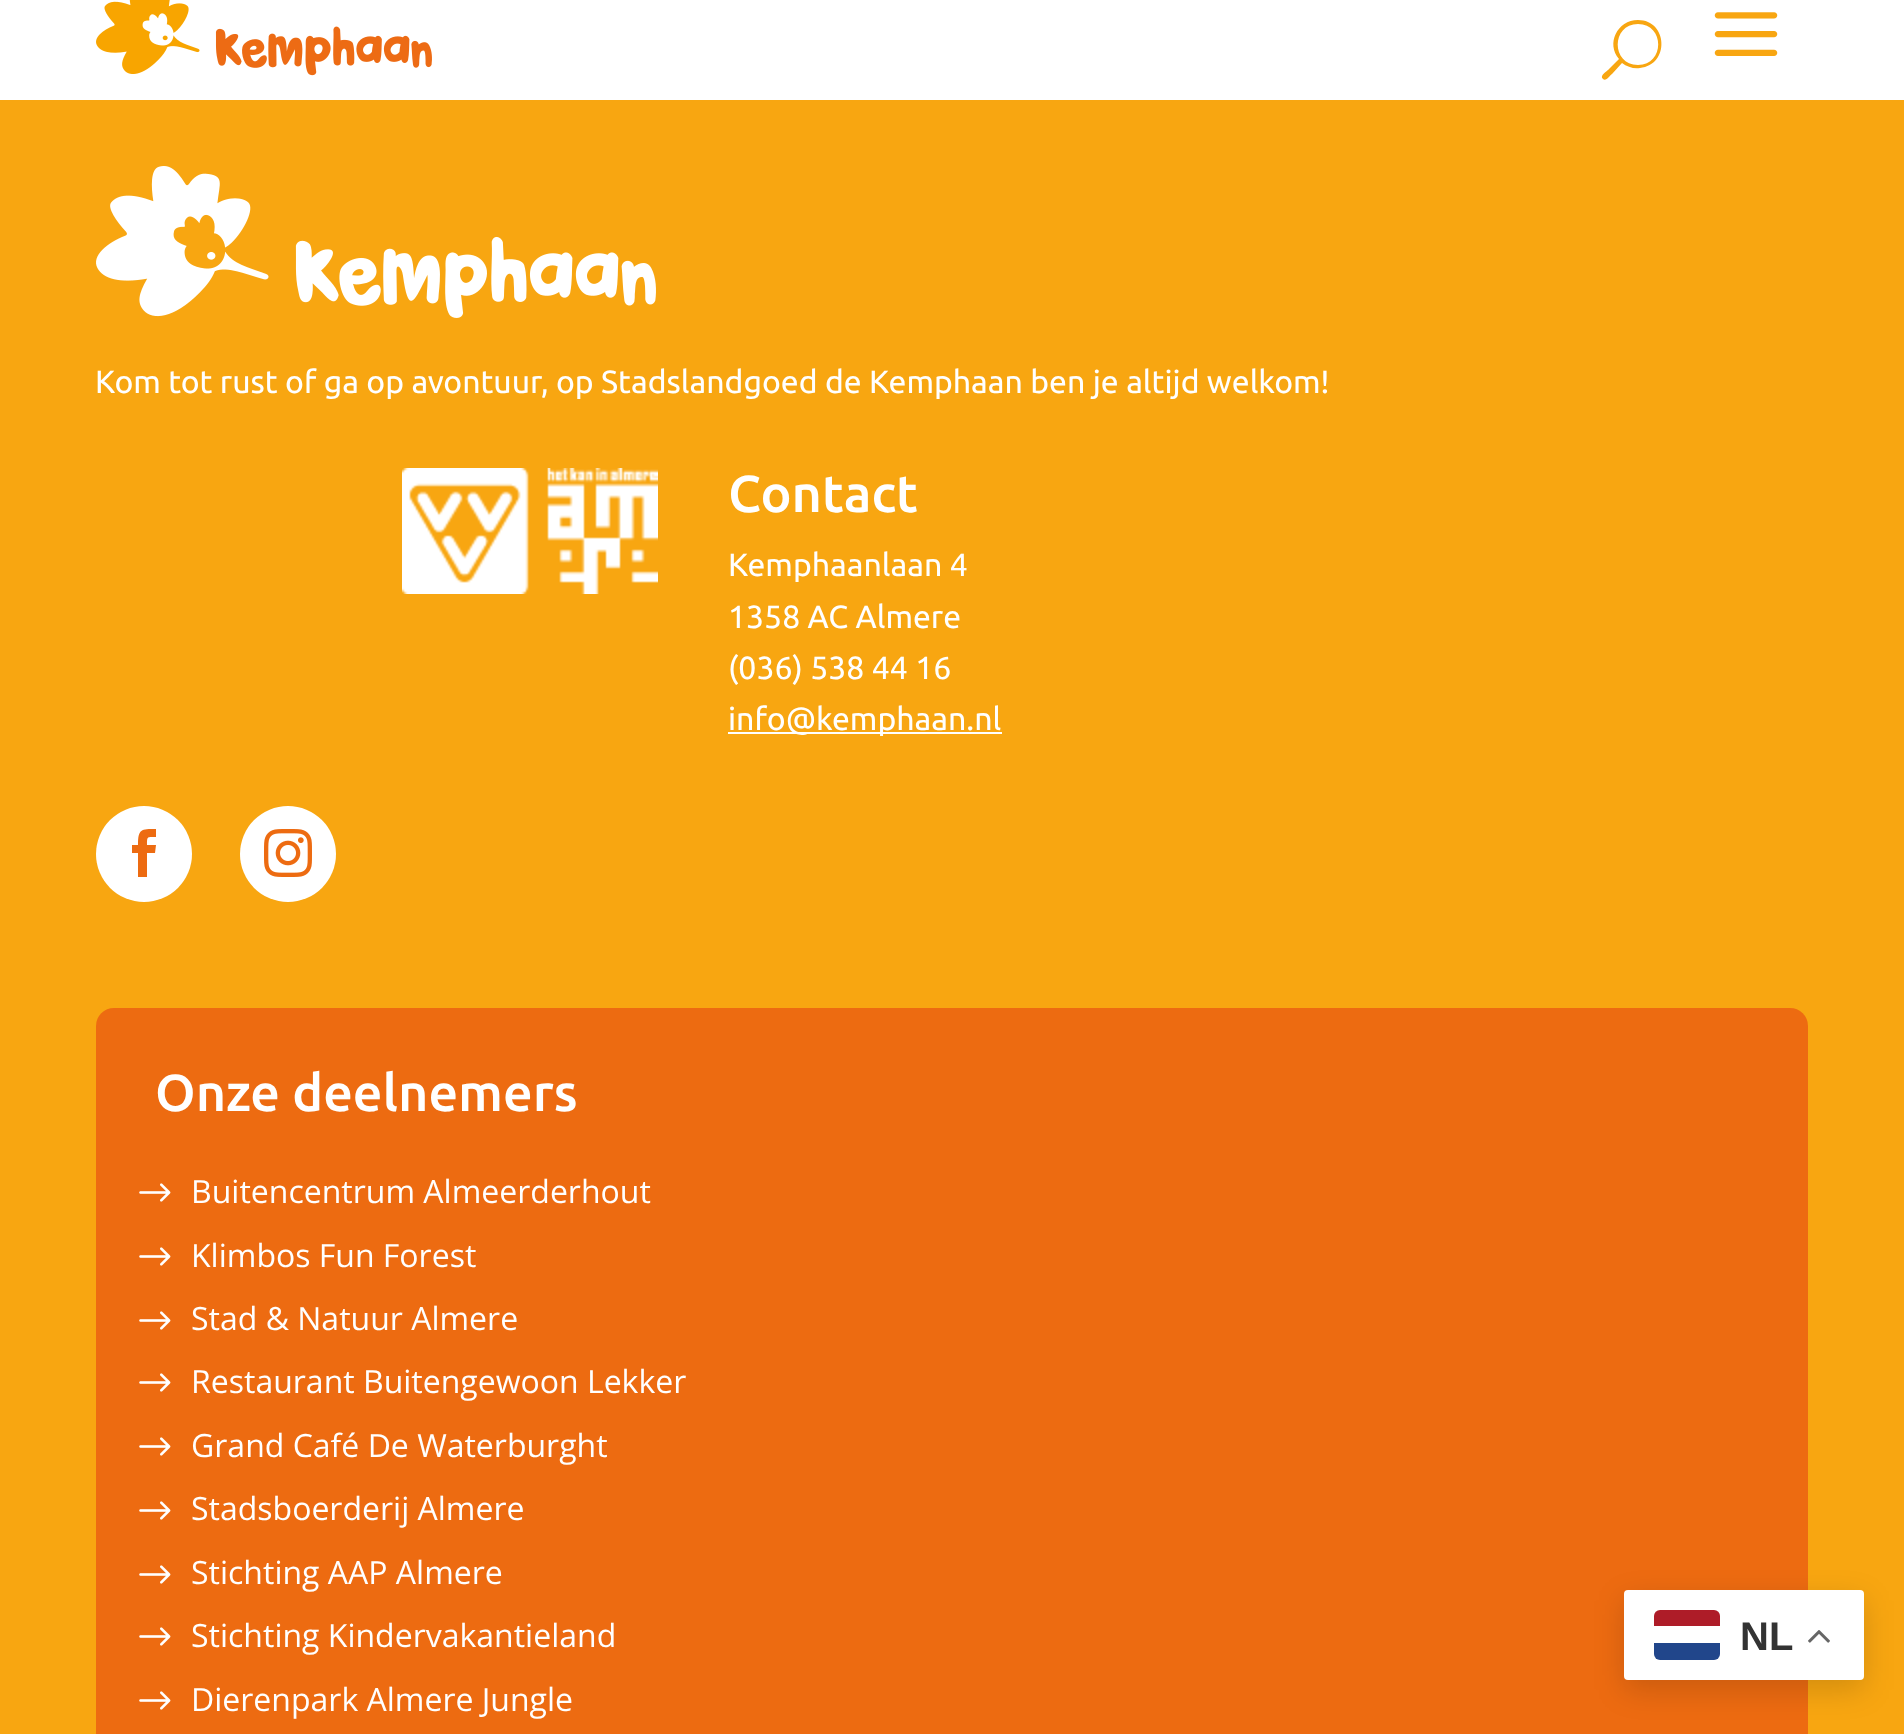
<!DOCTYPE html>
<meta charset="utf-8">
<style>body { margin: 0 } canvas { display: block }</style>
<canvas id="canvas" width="1904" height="1734"></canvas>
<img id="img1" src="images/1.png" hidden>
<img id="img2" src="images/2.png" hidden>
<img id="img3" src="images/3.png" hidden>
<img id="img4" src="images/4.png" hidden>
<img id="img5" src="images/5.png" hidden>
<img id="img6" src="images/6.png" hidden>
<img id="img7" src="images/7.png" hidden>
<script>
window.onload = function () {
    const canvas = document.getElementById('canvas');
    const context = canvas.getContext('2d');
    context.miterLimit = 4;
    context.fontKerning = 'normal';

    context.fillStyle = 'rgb(248, 166, 17)';
    context.fillRect(0, 0, 1904, 1734);
    context.fillStyle = 'rgb(255, 255, 255)';
    context.fillRect(0, 0, 1904, 100);
    context.drawImage(document.getElementById('img1'), 96, 0, 336, 76);
    context.fillStyle = 'rgb(248, 166, 17)';
    context.beginPath();
    context.moveTo(1638, 20);
    context.bezierCurveTo(1617, 20, 1606, 44, 1619, 59);
    context.lineTo(1608, 70);
    context.bezierCurveTo(1607, 71, 1599, 76, 1603, 79);
    context.bezierCurveTo(1606, 82, 1610, 75, 1612, 74);
    context.lineTo(1622, 63);
    context.bezierCurveTo(1627, 67, 1634, 69, 1640, 68);
    context.bezierCurveTo(1670, 65, 1668, 20, 1638, 20);
    context.closePath();
    context.moveTo(1638, 65);
    context.bezierCurveTo(1611, 65, 1611, 24, 1638, 24);
    context.bezierCurveTo(1665, 24, 1665, 65, 1638, 65);
    context.closePath();
    context.fill();
    context.drawImage(document.getElementById('img2'), 1714, 12, 64, 44);
    context.drawImage(document.getElementById('img3'), 96, 166, 560, 152);
    context.drawImage(document.getElementById('img4'), 402, 468, 256, 126);
    context.fillStyle = 'rgb(255, 255, 255)';
    context.fillRect(728, 732, 274, 2);
    context.beginPath();
    context.arc(144, 854, 48, 0, 2 * Math.PI);
    context.fill();
    context.fillStyle = 'rgb(237, 107, 17)';
    context.beginPath();
    context.moveTo(138, 877);
    context.lineTo(147, 877);
    context.lineTo(147, 853);
    context.lineTo(155, 853);
    context.lineTo(156, 845);
    context.lineTo(147, 845);
    context.bezierCurveTo(147, 836, 147, 837, 156, 837);
    context.lineTo(156, 829);
    context.bezierCurveTo(141, 829, 138, 829, 138, 845);
    context.lineTo(132, 845);
    context.lineTo(132, 853);
    context.lineTo(138, 853);
    context.closePath();
    context.fill();
    context.fillStyle = 'rgb(255, 255, 255)';
    context.beginPath();
    context.arc(288, 854, 48, 0, 2 * Math.PI);
    context.fill();
    context.drawImage(document.getElementById('img5'), 264, 829, 48, 48);
    context.fillStyle = 'rgb(237, 107, 17)';
    context.beginPath();
    context.roundRect(96, 1008, 1712, 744, 18);
    context.fill();
    context.drawImage(document.getElementById('img6'), 139, 1183, 32, 19);
    context.drawImage(document.getElementById('img6'), 139, 1247, 32, 19);
    context.drawImage(document.getElementById('img6'), 139, 1311, 32, 19);
    context.drawImage(document.getElementById('img6'), 139, 1373, 32, 19);
    context.drawImage(document.getElementById('img6'), 139, 1437, 32, 19);
    context.drawImage(document.getElementById('img6'), 139, 1501, 32, 19);
    context.drawImage(document.getElementById('img6'), 139, 1565, 32, 19);
    context.drawImage(document.getElementById('img6'), 139, 1627, 32, 19);
    context.drawImage(document.getElementById('img6'), 139, 1691, 32, 19);
    context.fillStyle = 'rgba(0, 0, 0, 0.15)';
    context.filter = 'blur(15px)';
    context.beginPath();
    context.roundRect(1624, 1600, 240, 90, 4);
    context.fill();
    context.filter = 'none';
    context.fillStyle = 'rgb(255, 255, 255)';
    context.beginPath();
    context.roundRect(1624, 1590, 240, 90, 4);
    context.fill();
    context.fillStyle = 'rgb(33, 70, 139)';
    context.beginPath();
    context.roundRect(1654, 1643, 66, 17, [0, 0, 6, 6]);
    context.fill();
    context.fillStyle = 'rgb(174, 28, 40)';
    context.beginPath();
    context.roundRect(1654, 1610, 66, 16, [6, 6, 0, 0]);
    context.fill();
    context.drawImage(document.getElementById('img7'), 1808, 1630, 22, 13);
    context.font = '32px Ubuntu';
    context.fillStyle = 'rgb(255, 255, 255)';
    context.fillText('Kom tot rust of ga op avontuur, op Stadslandgoed de Kemphaan ben je altijd welkom!', 95, 393);
    context.font = '500 52px Ubuntu';
    context.fillText('Contact', 728, 512);
    context.font = '32px Ubuntu';
    context.fillText('Kemphaanlaan 4', 728, 576);
    context.fillText('1358 AC Almere', 728, 628);
    context.fillText('(036) 538 44 16', 728, 679);
    context.fillText('info@kemphaan.nl', 728, 730);
    context.font = '500 52px Ubuntu';
    context.fillText('Onze deelnemers', 155, 1111);
    context.font = '32px Open Sans';
    context.fillText('Buitencentrum Almeerderhout', 191, 1203);
    context.fillText('Klimbos Fun Forest', 191, 1267);
    context.fillText('Stad & Natuur Almere', 191, 1330);
    context.fillText('Restaurant Buitengewoon Lekker', 191, 1393);
    context.fillText('Grand Café De Waterburght', 191, 1457);
    context.fillText('Stadsboerderij Almere', 191, 1520);
    context.fillText('Stichting AAP Almere', 191, 1584);
    context.fillText('Stichting Kindervakantieland', 191, 1647);
    context.fillText('Dierenpark Almere Jungle', 191, 1711);
    context.font = 'bold 40px Liberation Sans';
    context.fillStyle = 'rgb(51, 51, 51)';
    context.fillText('NL', 1740, 1650);
};
</script>
